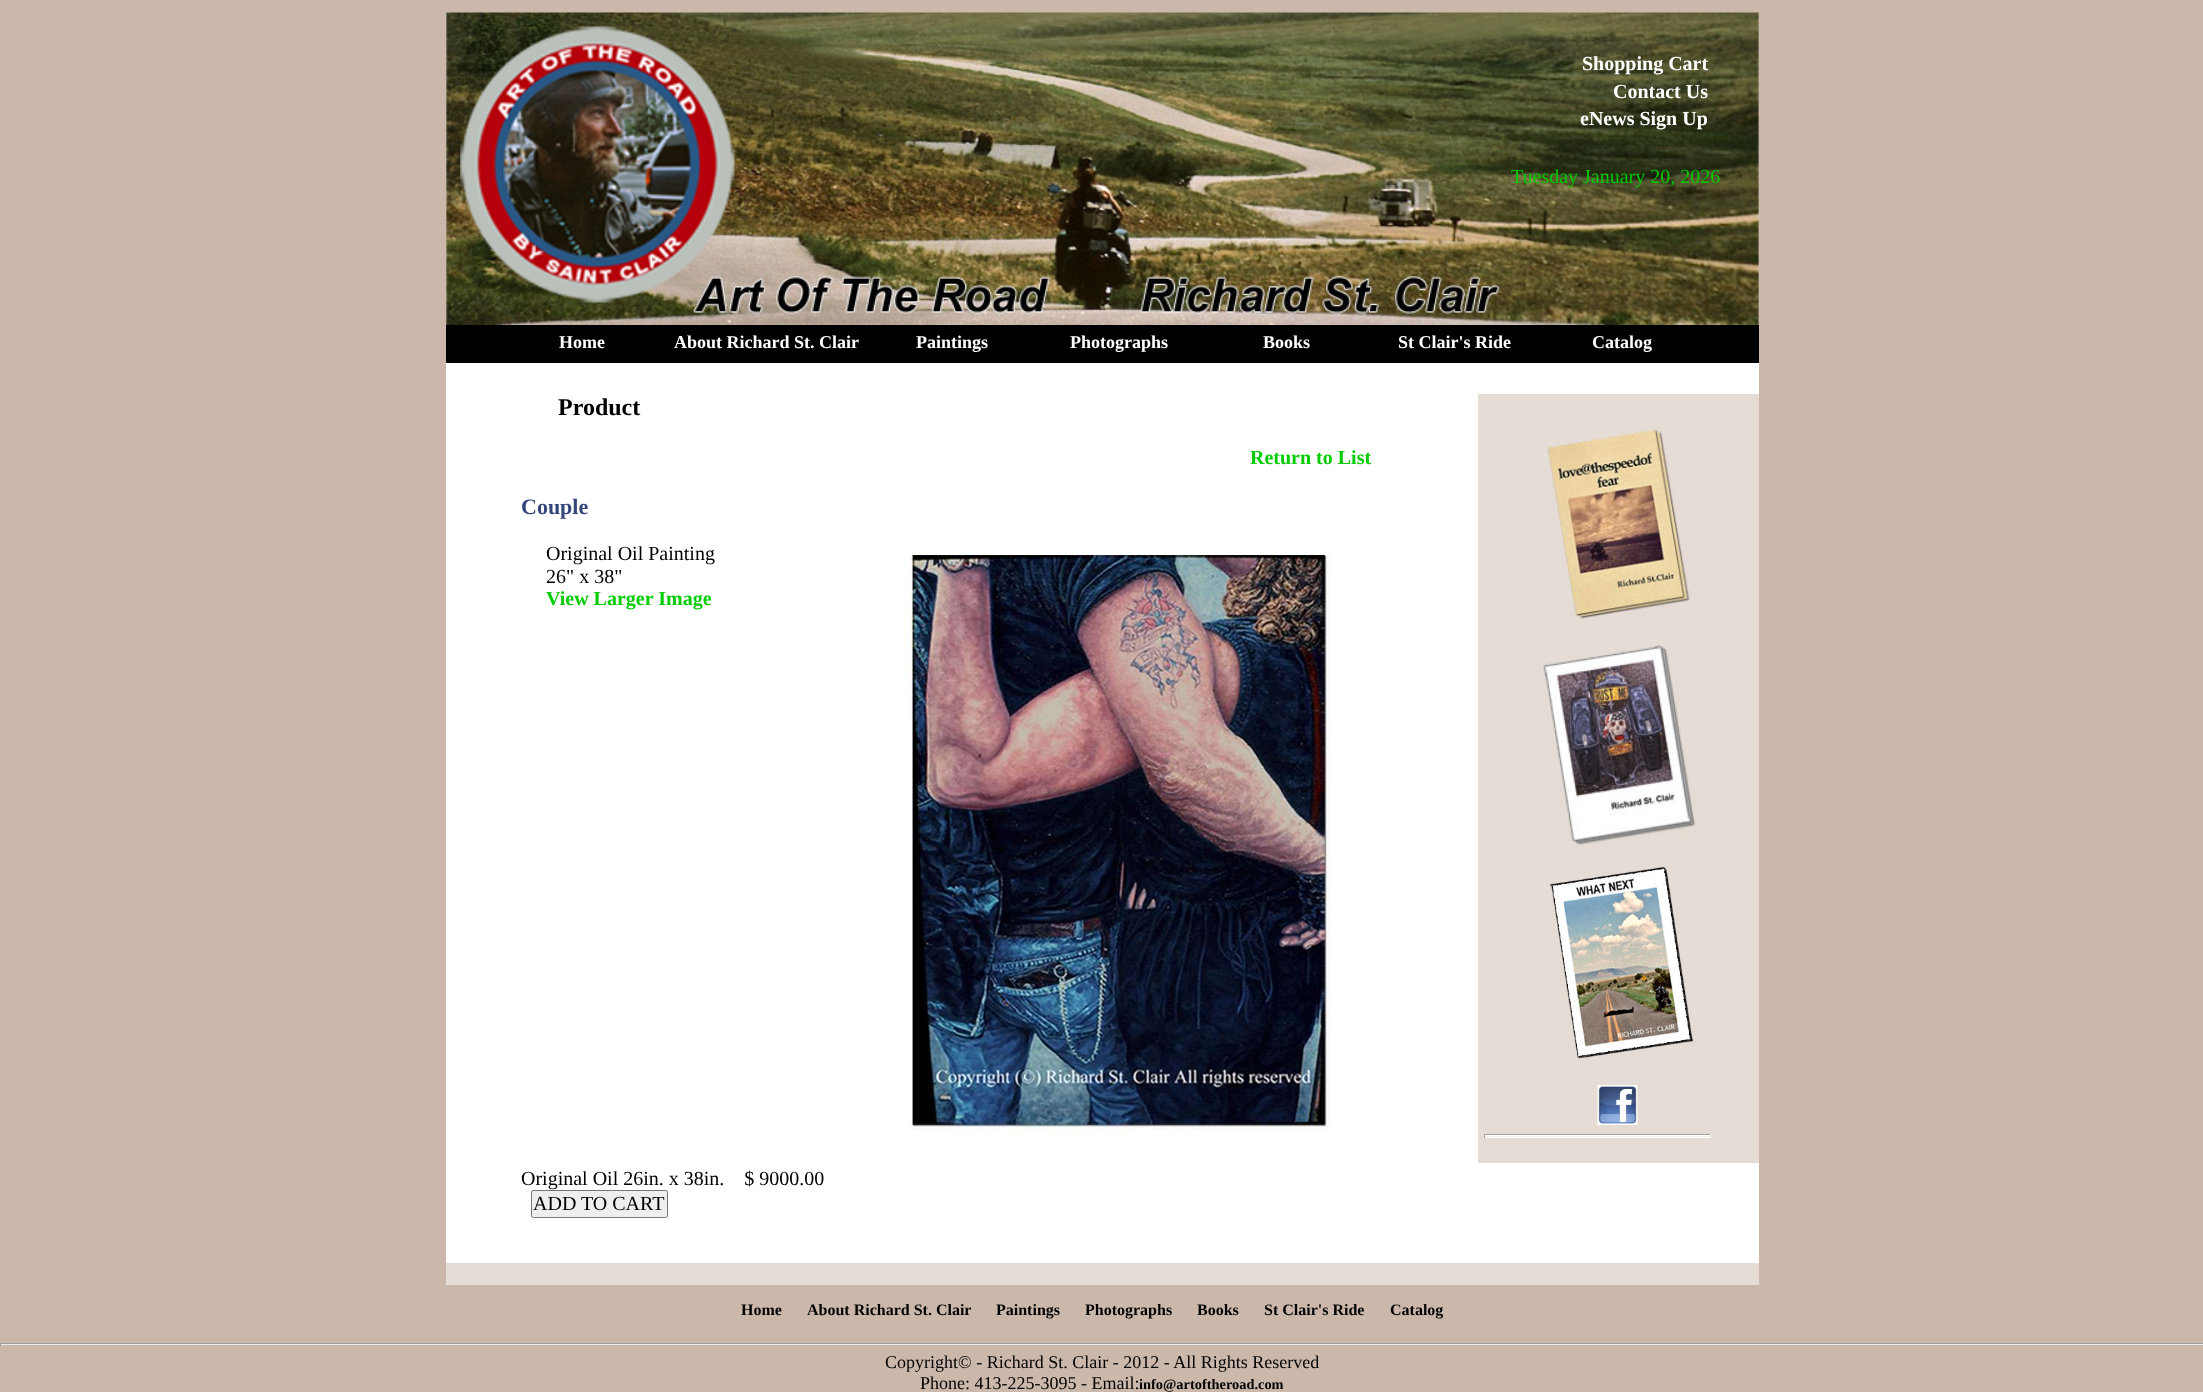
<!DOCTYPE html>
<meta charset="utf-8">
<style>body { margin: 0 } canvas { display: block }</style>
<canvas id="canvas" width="2203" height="1392"></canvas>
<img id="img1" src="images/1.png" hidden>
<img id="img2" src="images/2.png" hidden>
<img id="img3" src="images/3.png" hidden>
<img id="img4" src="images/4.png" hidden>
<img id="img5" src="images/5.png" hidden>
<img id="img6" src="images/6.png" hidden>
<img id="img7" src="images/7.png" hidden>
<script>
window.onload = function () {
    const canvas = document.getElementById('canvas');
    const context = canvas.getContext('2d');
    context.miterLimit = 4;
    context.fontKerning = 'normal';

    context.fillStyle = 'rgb(203, 184, 171)';
    context.fillRect(0, 0, 2203, 1392);
    context.fillStyle = 'rgb(229, 220, 213)';
    context.fillRect(446, 13, 1313, 1272);
    context.drawImage(document.getElementById('img1'), 446, 12, 1313, 313);
    context.drawImage(document.getElementById('img2'), 460, 26, 275, 277);
    context.fillStyle = 'rgb(0, 0, 0)';
    context.fillRect(446, 325, 1313, 38);
    context.fillStyle = 'rgb(255, 255, 255)';
    context.fillRect(446, 363, 1313, 900);
    context.drawImage(document.getElementById('img3'), 904, 554, 428, 580);
    context.fillStyle = 'rgb(239, 239, 239)';
    context.beginPath();
    context.roundRect(531.5, 1190.5, 136, 27, 2);
    context.fill();
    context.strokeStyle = 'rgb(118, 118, 118)';
    context.stroke();
    context.fillStyle = 'rgb(229, 220, 213)';
    context.fillRect(1478, 394, 281, 769);
    context.drawImage(document.getElementById('img4'), 1547, 424, 145, 197);
    context.drawImage(document.getElementById('img5'), 1539, 645, 159, 200);
    context.drawImage(document.getElementById('img6'), 1547, 865, 149, 194);
    context.drawImage(document.getElementById('img7'), 1597, 1085, 41, 40);
    context.fillStyle = 'rgb(255, 255, 255)';
    context.fillRect(1484, 1135, 227, 3);
    context.fillStyle = 'rgb(159, 159, 159)';
    context.fillRect(1484, 1134, 227, 1);
    context.fillStyle = 'rgb(238, 238, 238)';
    context.fillRect(1710, 1134, 1, 4);
    context.fillRect(1484, 1136, 227, 1);
    context.fillStyle = 'rgb(159, 159, 159)';
    context.fillRect(1484, 1134, 1, 4);
    context.fillRect(0, 1343, 2203, 1);
    context.fillStyle = 'rgb(238, 238, 238)';
    context.fillRect(0, 1344, 2203, 1);
    context.fillStyle = 'rgb(159, 159, 159)';
    context.fillRect(0, 1343, 1, 3);
    context.font = 'bold 20px Liberation Serif';
    context.fillStyle = 'rgb(255, 255, 255)';
    context.fillText('Shopping Cart', 1582, 70);
    context.fillText('Contact Us', 1613, 98);
    context.fillText('eNews Sign Up', 1580, 125);
    context.font = '20px Liberation Serif';
    context.fillStyle = 'rgb(0, 204, 0)';
    context.fillText('Tuesday January 20, 2026', 1511, 183);
    context.font = 'bold 18px Liberation Serif';
    context.fillStyle = 'rgb(255, 255, 255)';
    context.fillText('Home', 559, 348);
    context.fillText('About Richard St. Clair', 674, 348);
    context.fillText('Paintings', 916, 348);
    context.fillText('Photographs', 1070, 348);
    context.fillText('Books', 1263, 348);
    context.fillText('St Clair\'s Ride', 1398, 348);
    context.fillText('Catalog', 1592, 348);
    context.font = 'bold 24px Liberation Serif';
    context.fillStyle = 'rgb(0, 0, 0)';
    context.fillText('Product', 558, 415);
    context.font = 'bold 20px Liberation Serif';
    context.fillStyle = 'rgb(0, 204, 0)';
    context.fillText('Return to List', 1250, 464);
    context.font = 'bold 22px Liberation Serif';
    context.fillStyle = 'rgb(52, 69, 124)';
    context.fillText('Couple', 521, 514);
    context.font = '20px Liberation Serif';
    context.fillStyle = 'rgb(0, 0, 0)';
    context.fillText('Original Oil Painting', 546, 560);
    context.fillText('26" x 38"', 546, 583);
    context.font = 'bold 20px Liberation Serif';
    context.fillStyle = 'rgb(0, 204, 0)';
    context.fillText('View Larger Image', 546, 605);
    context.font = '20px Liberation Serif';
    context.fillStyle = 'rgb(0, 0, 0)';
    context.fillText('Original Oil 26in. x 38in.    $ 9000.00', 521, 1185);
    context.fillText('ADD TO CART', 533, 1210);
    context.font = 'bold 16px Liberation Serif';
    context.fillText('Home', 741, 1315);
    context.fillText('About Richard St. Clair', 807, 1315);
    context.fillText('Paintings', 996, 1315);
    context.fillText('Photographs', 1085, 1315);
    context.fillText('Books', 1197, 1315);
    context.fillText('St Clair\'s Ride', 1264, 1315);
    context.fillText('Catalog', 1390, 1315);
    context.font = '18px Liberation Serif';
    context.fillText('Copyright© - Richard St. Clair - 2012 - All Rights Reserved', 885, 1368);
    context.fillText('Phone: 413-225-3095 - Email:', 920, 1389);
    context.font = 'bold 14.4px Liberation Serif';
    context.fillText('info@artoftheroad.com', 1139, 1389);
};
</script>
